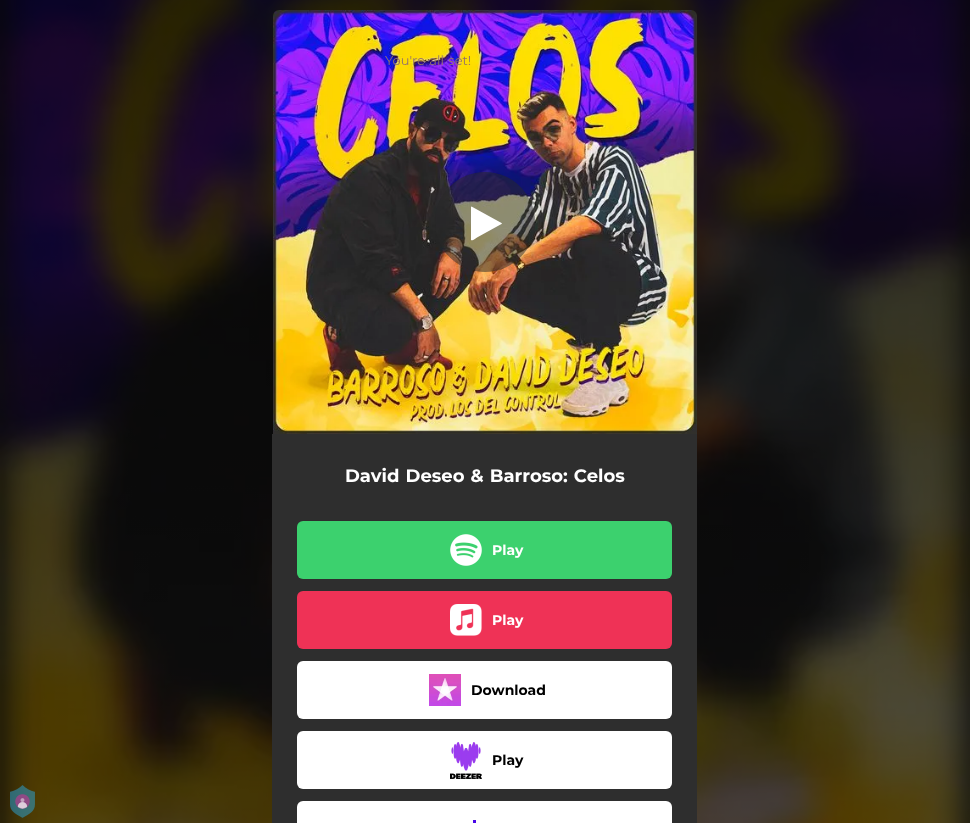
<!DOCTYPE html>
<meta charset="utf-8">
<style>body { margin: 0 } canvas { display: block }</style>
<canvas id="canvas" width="970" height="823"></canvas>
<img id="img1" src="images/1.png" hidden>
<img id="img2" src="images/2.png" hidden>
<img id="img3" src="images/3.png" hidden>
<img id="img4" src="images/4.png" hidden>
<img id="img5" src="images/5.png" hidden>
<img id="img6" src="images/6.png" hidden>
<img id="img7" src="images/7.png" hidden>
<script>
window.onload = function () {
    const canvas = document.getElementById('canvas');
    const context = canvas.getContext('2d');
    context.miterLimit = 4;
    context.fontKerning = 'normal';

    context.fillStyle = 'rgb(255, 255, 255)';
    context.fillRect(0, 0, 970, 823);
    context.drawImage(document.getElementById('img1'), 0, 0, 970, 823);
    context.drawImage(document.getElementById('img2'), 273, 10, 424, 424);
    context.fillStyle = 'rgba(40, 40, 40, 0.5)';
    context.beginPath();
    context.arc(485, 222, 50, 0, 2 * Math.PI);
    context.fill();
    context.fillStyle = 'rgb(255, 255, 255)';
    context.beginPath();
    context.moveTo(501.5, 224);
    context.lineTo(477, 237.5);
    context.bezierCurveTo(476.5, 238, 472, 241.5, 471, 240);
    context.lineTo(471, 207);
    context.lineTo(471.5, 206.5);
    context.lineTo(501.5, 223);
    context.lineTo(502, 223.5);
    context.lineTo(501.5, 224);
    context.fill();
    context.fillStyle = 'rgb(46, 46, 46)';
    context.fillRect(272, 434, 425, 389);
    context.fillStyle = 'rgb(60, 209, 110)';
    context.beginPath();
    context.roundRect(297, 521, 375, 58, 6);
    context.fill();
    context.drawImage(document.getElementById('img3'), 450, 534, 32, 32);
    context.fillStyle = 'rgb(239, 50, 86)';
    context.beginPath();
    context.roundRect(297, 591, 375, 58, 6);
    context.fill();
    context.drawImage(document.getElementById('img4'), 450, 604, 32, 32);
    context.fillStyle = 'rgb(255, 255, 255)';
    context.beginPath();
    context.roundRect(297, 661, 375, 58, 6);
    context.fill();
    context.drawImage(document.getElementById('img5'), 429, 674, 32, 32);
    context.beginPath();
    context.roundRect(297, 731, 375, 58, 6);
    context.fill();
    context.drawImage(document.getElementById('img6'), 450, 742, 32, 37);
    context.beginPath();
    context.roundRect(297, 801, 375, 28, 6);
    context.fill();
    context.fillStyle = 'rgb(72, 6, 232)';
    context.fillRect(473, 820, 3, 3);
    context.drawImage(document.getElementById('img7'), 10, 785, 25, 33);
    context.wordSpacing = '1px';
    context.font = '13px Montserrat';
    context.fillStyle = 'rgb(148, 115, 106)';
    context.fillText('You\'re all set!', 385, 65);
    context.font = 'bold 18px Montserrat';
    context.fillStyle = 'rgb(255, 255, 255)';
    context.fillText('David Deseo & Barroso: Celos', 345, 482);
    context.wordSpacing = '0px';
    context.font = 'bold 14px Montserrat';
    context.fillText('Play', 492, 555);
    context.fillText('Play', 492, 625);
    context.fillStyle = 'rgb(0, 0, 0)';
    context.fillText('Download', 471, 695);
    context.fillText('Play', 492, 765);
};
</script>
